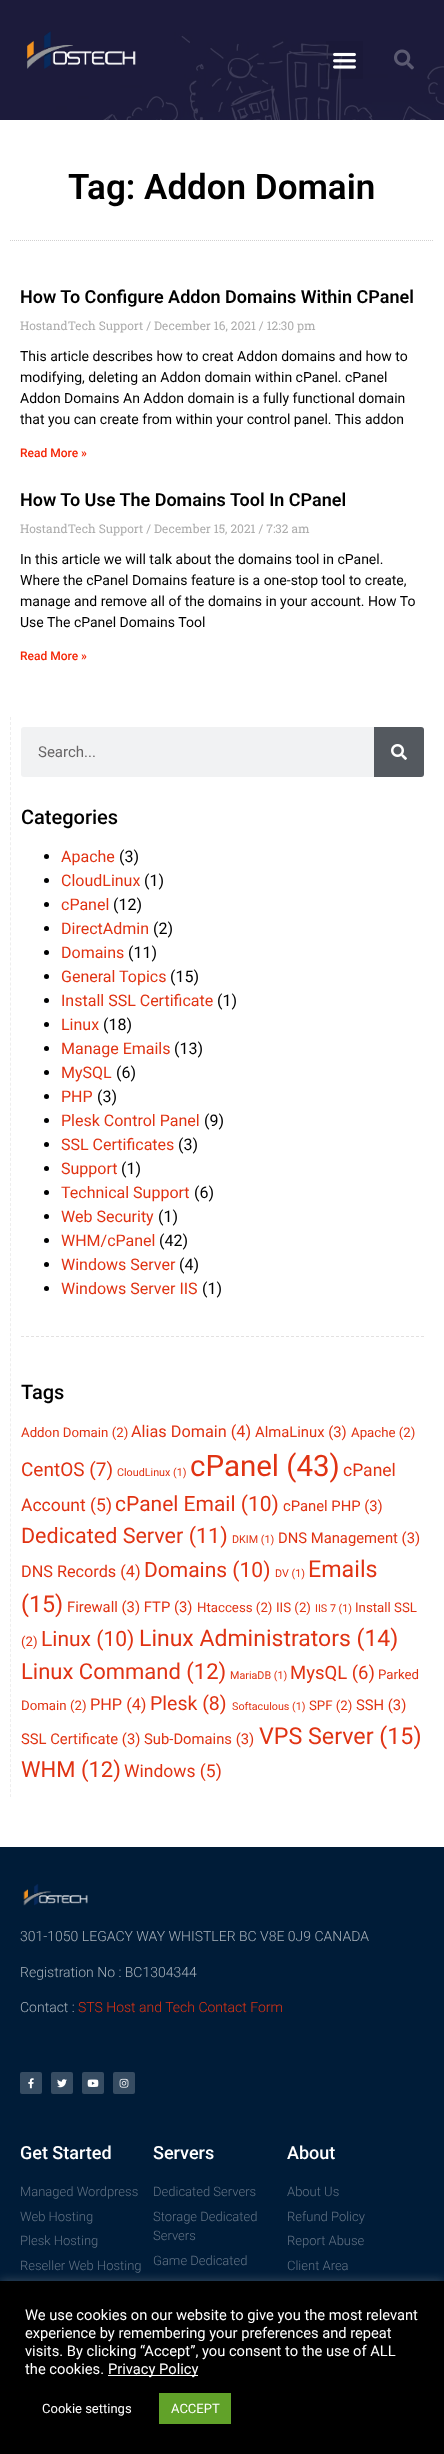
<!DOCTYPE html>
<meta charset="utf-8">
<style>body { margin: 0 } canvas { display: block }</style>
<canvas id="canvas" width="444" height="2454"></canvas>
<img id="img1" src="images/1.png" hidden>
<img id="img2" src="images/2.png" hidden>
<img id="img3" src="images/3.png" hidden>
<img id="img4" src="images/4.png" hidden>
<img id="img5" src="images/5.png" hidden>
<img id="img6" src="images/6.png" hidden>
<img id="img7" src="images/7.png" hidden>
<img id="img8" src="images/8.png" hidden>
<img id="img9" src="images/9.png" hidden>
<img id="img10" src="images/10.png" hidden>
<script>
window.onload = function () {
    const canvas = document.getElementById('canvas');
    const context = canvas.getContext('2d');
    context.miterLimit = 4;
    context.fontKerning = 'normal';

    context.fillStyle = 'rgb(255, 255, 255)';
    context.fillRect(0, 0, 444, 2454);
    context.fillStyle = 'rgb(33, 31, 64)';
    context.fillRect(0, 0, 444, 120);
    context.drawImage(document.getElementById('img1'), 0, 0, 444, 120);
    context.drawImage(document.getElementById('img2'), 27, 31, 109, 38);
    context.fillStyle = 'rgba(0, 0, 0, 0.05)';
    context.fillRect(326, 41, 37, 38);
    context.drawImage(document.getElementById('img3'), 333, 52, 23, 17);
    context.drawImage(document.getElementById('img4'), 394, 49, 20, 21);
    context.beginPath();
    context.moveTo(10, 240.5);
    context.lineTo(434, 240.5);
    context.strokeStyle = 'rgb(210, 209, 209)';
    context.setLineDash([1, 1]);
    context.stroke();
    context.beginPath();
    context.moveTo(10.5, 717);
    context.lineTo(10.5, 1797);
    context.strokeStyle = 'rgb(238, 238, 238)';
    context.setLineDash([3, 2.01]);
    context.stroke();
    context.fillStyle = 'rgb(241, 242, 243)';
    context.beginPath();
    context.roundRect(21, 727, 403, 50, 3);
    context.fill();
    context.fillStyle = 'rgb(84, 89, 95)';
    context.beginPath();
    context.roundRect(374, 727, 50, 50, [0, 3, 3, 0]);
    context.fill();
    context.drawImage(document.getElementById('img5'), 391, 744, 16, 16);
    context.fillStyle = 'rgb(0, 1, 2)';
    context.beginPath();
    context.arc(46.5, 856.5, 2.5, 0, 2 * Math.PI);
    context.fill();
    context.beginPath();
    context.arc(46.5, 880.5, 2.5, 0, 2 * Math.PI);
    context.fill();
    context.beginPath();
    context.arc(46.5, 904.5, 2.5, 0, 2 * Math.PI);
    context.fill();
    context.beginPath();
    context.arc(46.5, 928.5, 2.5, 0, 2 * Math.PI);
    context.fill();
    context.beginPath();
    context.arc(46.5, 952.5, 2.5, 0, 2 * Math.PI);
    context.fill();
    context.beginPath();
    context.arc(46.5, 976.5, 2.5, 0, 2 * Math.PI);
    context.fill();
    context.beginPath();
    context.arc(46.5, 1000.5, 2.5, 0, 2 * Math.PI);
    context.fill();
    context.beginPath();
    context.arc(46.5, 1024.5, 2.5, 0, 2 * Math.PI);
    context.fill();
    context.beginPath();
    context.arc(46.5, 1048.5, 2.5, 0, 2 * Math.PI);
    context.fill();
    context.beginPath();
    context.arc(46.5, 1072.5, 2.5, 0, 2 * Math.PI);
    context.fill();
    context.beginPath();
    context.arc(46.5, 1096.5, 2.5, 0, 2 * Math.PI);
    context.fill();
    context.beginPath();
    context.arc(46.5, 1120.5, 2.5, 0, 2 * Math.PI);
    context.fill();
    context.beginPath();
    context.arc(46.5, 1144.5, 2.5, 0, 2 * Math.PI);
    context.fill();
    context.beginPath();
    context.arc(46.5, 1168.5, 2.5, 0, 2 * Math.PI);
    context.fill();
    context.beginPath();
    context.arc(46.5, 1192.5, 2.5, 0, 2 * Math.PI);
    context.fill();
    context.beginPath();
    context.arc(46.5, 1216.5, 2.5, 0, 2 * Math.PI);
    context.fill();
    context.beginPath();
    context.arc(46.5, 1240.5, 2.5, 0, 2 * Math.PI);
    context.fill();
    context.beginPath();
    context.arc(46.5, 1264.5, 2.5, 0, 2 * Math.PI);
    context.fill();
    context.beginPath();
    context.arc(46.5, 1288.5, 2.5, 0, 2 * Math.PI);
    context.fill();
    context.beginPath();
    context.moveTo(21, 1336.5);
    context.lineTo(424, 1336.5);
    context.strokeStyle = 'rgb(227, 225, 225)';
    context.setLineDash([3, 2]);
    context.stroke();
    context.fillStyle = 'rgb(0, 28, 56)';
    context.fillRect(0, 1847, 444, 434);
    context.drawImage(document.getElementById('img6'), 23, 1884, 65, 22);
    context.fillStyle = 'rgb(54, 76, 98)';
    context.beginPath();
    context.roundRect(20, 2072, 22, 22, 2);
    context.fill();
    context.drawImage(document.getElementById('img7'), 28, 2078, 6, 11);
    context.beginPath();
    context.roundRect(51, 2072, 22, 22, 2);
    context.fill();
    context.drawImage(document.getElementById('img8'), 57, 2079, 10, 9);
    context.beginPath();
    context.roundRect(82, 2072, 22, 22, 2);
    context.fill();
    context.drawImage(document.getElementById('img9'), 87, 2079, 12, 8);
    context.beginPath();
    context.roundRect(113, 2072, 22, 22, 2);
    context.fill();
    context.drawImage(document.getElementById('img10'), 119, 2078, 10, 10);
    context.fillStyle = 'rgba(172, 171, 171, 0.3)';
    context.filter = 'blur(5px)';
    context.beginPath();
    context.rect(0, 2280, 444, 173);
    context.fill();
    context.filter = 'none';
    context.fillStyle = 'rgb(0, 0, 0)';
    context.fillRect(0, 2281, 444, 173);
    context.fillStyle = 'rgb(255, 255, 255)';
    context.fillRect(108, 2375, 90, 1);
    context.fillStyle = 'rgb(97, 162, 41)';
    context.fillRect(159, 2393, 72, 31);
    context.font = '600 35px Roboto';
    context.fillStyle = 'rgb(0, 0, 0)';
    context.fillText('Tag: Addon Domain', 68, 199);
    context.font = '600 18px Roboto';
    context.fillText('How To Configure Addon Domains Within CPanel', 20, 303);
    context.font = '12px Roboto Slab';
    context.fillStyle = 'rgb(173, 173, 173)';
    context.fillText('HostandTech Support / December 16, 2021 / 12:30 pm', 20, 330);
    context.font = '14px Roboto';
    context.fillStyle = 'rgb(0, 0, 0)';
    context.fillText('This article describes how to creat Addon domains and how to', 20, 361);
    context.fillText('modifying, deleting an Addon domain within cPanel. cPanel', 20, 382);
    context.fillText('Addon Domains An Addon domain is a fully functional domain', 20, 403);
    context.fillText('that you can create from within your control panel. This addon', 20, 424);
    context.font = '500 12px Roboto';
    context.fillStyle = 'rgb(244, 37, 5)';
    context.fillText('Read More »', 20, 457);
    context.font = '600 18px Roboto';
    context.fillStyle = 'rgb(0, 0, 0)';
    context.fillText('How To Use The Domains Tool In CPanel', 20, 506);
    context.font = '12px Roboto Slab';
    context.fillStyle = 'rgb(173, 173, 173)';
    context.fillText('HostandTech Support / December 15, 2021 / 7:32 am', 20, 533);
    context.font = '14px Roboto';
    context.fillStyle = 'rgb(0, 0, 0)';
    context.fillText('In this article we will talk about the domains tool in cPanel.', 20, 564);
    context.fillText('Where the cPanel Domains feature is a one-stop tool to create,', 20, 585);
    context.fillText('manage and remove all of the domains in your account. How To', 20, 606);
    context.fillText('Use The cPanel Domains Tool', 20, 627);
    context.font = '500 12px Roboto';
    context.fillStyle = 'rgb(244, 37, 5)';
    context.fillText('Read More »', 20, 660);
    context.font = '15px Roboto';
    context.fillStyle = 'rgb(104, 102, 103)';
    context.fillText('Search...', 38, 757);
    context.font = '500 20px Roboto';
    context.fillStyle = 'rgb(0, 0, 0)';
    context.fillText('Categories', 21, 824);
    context.font = '16px Roboto';
    context.fillStyle = 'rgb(224, 51, 19)';
    context.fillText('Apache', 61, 862);
    context.fillStyle = 'rgb(0, 0, 0)';
    context.fillText('(3)', 119, 862);
    context.fillStyle = 'rgb(224, 51, 19)';
    context.fillText('CloudLinux', 61, 886);
    context.fillStyle = 'rgb(0, 0, 0)';
    context.fillText('(1)', 144, 886);
    context.fillStyle = 'rgb(224, 51, 19)';
    context.fillText('cPanel', 61, 910);
    context.fillStyle = 'rgb(0, 0, 0)';
    context.fillText('(12)', 113, 910);
    context.fillStyle = 'rgb(224, 51, 19)';
    context.fillText('DirectAdmin', 61, 934);
    context.fillStyle = 'rgb(0, 0, 0)';
    context.fillText('(2)', 153, 934);
    context.fillStyle = 'rgb(224, 51, 19)';
    context.fillText('Domains', 61, 958);
    context.fillStyle = 'rgb(0, 0, 0)';
    context.fillText('(11)', 128, 958);
    context.fillStyle = 'rgb(224, 51, 19)';
    context.fillText('General Topics', 61, 982);
    context.fillStyle = 'rgb(0, 0, 0)';
    context.fillText('(15)', 170, 982);
    context.fillStyle = 'rgb(224, 51, 19)';
    context.fillText('Install SSL Certificate', 61, 1006);
    context.fillStyle = 'rgb(0, 0, 0)';
    context.fillText('(1)', 217, 1006);
    context.fillStyle = 'rgb(224, 51, 19)';
    context.fillText('Linux', 61, 1030);
    context.fillStyle = 'rgb(0, 0, 0)';
    context.fillText('(18)', 103, 1030);
    context.fillStyle = 'rgb(224, 51, 19)';
    context.fillText('Manage Emails', 61, 1054);
    context.fillStyle = 'rgb(0, 0, 0)';
    context.fillText('(13)', 174, 1054);
    context.fillStyle = 'rgb(224, 51, 19)';
    context.fillText('MySQL', 61, 1078);
    context.fillStyle = 'rgb(0, 0, 0)';
    context.fillText('(6)', 116, 1078);
    context.fillStyle = 'rgb(224, 51, 19)';
    context.fillText('PHP', 61, 1102);
    context.fillStyle = 'rgb(0, 0, 0)';
    context.fillText('(3)', 97, 1102);
    context.fillStyle = 'rgb(224, 51, 19)';
    context.fillText('Plesk Control Panel', 61, 1126);
    context.fillStyle = 'rgb(0, 0, 0)';
    context.fillText('(9)', 204, 1126);
    context.fillStyle = 'rgb(224, 51, 19)';
    context.fillText('SSL Certificates', 61, 1150);
    context.fillStyle = 'rgb(0, 0, 0)';
    context.fillText('(3)', 178, 1150);
    context.fillStyle = 'rgb(224, 51, 19)';
    context.fillText('Support', 61, 1174);
    context.fillStyle = 'rgb(0, 0, 0)';
    context.fillText('(1)', 121, 1174);
    context.fillStyle = 'rgb(224, 51, 19)';
    context.fillText('Technical Support', 61, 1198);
    context.fillStyle = 'rgb(0, 0, 0)';
    context.fillText('(6)', 194, 1198);
    context.fillStyle = 'rgb(224, 51, 19)';
    context.fillText('Web Security', 61, 1222);
    context.fillStyle = 'rgb(0, 0, 0)';
    context.fillText('(1)', 158, 1222);
    context.fillStyle = 'rgb(224, 51, 19)';
    context.fillText('WHM/cPanel', 61, 1246);
    context.fillStyle = 'rgb(0, 0, 0)';
    context.fillText('(42)', 159, 1246);
    context.fillStyle = 'rgb(224, 51, 19)';
    context.fillText('Windows Server', 61, 1270);
    context.fillStyle = 'rgb(0, 0, 0)';
    context.fillText('(4)', 179, 1270);
    context.fillStyle = 'rgb(224, 51, 19)';
    context.fillText('Windows Server IIS', 61, 1294);
    context.fillStyle = 'rgb(0, 0, 0)';
    context.fillText('(1)', 202, 1294);
    context.font = '500 20px Roboto';
    context.fillText('Tags', 21, 1399);
    context.font = '13.25px Roboto';
    context.fillStyle = 'rgb(224, 51, 19)';
    context.fillText('Addon Domain (2)', 21, 1437);
    context.font = '16.25px Roboto';
    context.fillText('Alias Domain (4)', 131, 1437);
    context.font = '14.8px Roboto';
    context.fillText('AlmaLinux (3)', 255, 1437);
    context.font = '13.25px Roboto';
    context.fillText('Apache (2)', 351, 1437);
    context.font = '19px Roboto';
    context.fillText('CentOS (7)', 21, 1476);
    context.font = '10.75px Roboto';
    context.fillText('CloudLinux (1)', 117, 1476);
    context.font = '29.5px Roboto';
    context.fillText('cPanel (43)', 190, 1476);
    context.font = '17.5px Roboto';
    context.fillText('cPanel', 343, 1476);
    context.fillText('Account (5)', 21, 1511);
    context.font = '21px Roboto';
    context.fillText('cPanel Email (10)', 115, 1511);
    context.font = '14.8px Roboto';
    context.fillText('cPanel PHP (3)', 283, 1511);
    context.font = '21.5px Roboto';
    context.fillText('Dedicated Server (11)', 21, 1543);
    context.font = '10.75px Roboto';
    context.fillText('DKIM (1)', 232, 1543);
    context.font = '14.8px Roboto';
    context.fillText('DNS Management (3)', 278, 1543);
    context.font = '16.25px Roboto';
    context.fillText('DNS Records (4)', 21, 1577);
    context.font = '21px Roboto';
    context.fillText('Domains (10)', 144, 1577);
    context.font = '10.75px Roboto';
    context.fillText('DV (1)', 275, 1577);
    context.font = '23.25px Roboto';
    context.fillText('Emails', 308, 1577);
    context.fillText('(15)', 21, 1612);
    context.font = '14.8px Roboto';
    context.fillText('Firewall (3) FTP (3)', 67, 1612);
    context.font = '13.25px Roboto';
    context.fillText('Htaccess (2)', 197, 1612);
    context.fillText('IIS (2)', 276, 1612);
    context.font = '10.75px Roboto';
    context.fillText('IIS 7 (1)', 315, 1612);
    context.font = '13.25px Roboto';
    context.fillText('Install SSL', 355, 1612);
    context.fillText('(2)', 21, 1646);
    context.font = '21px Roboto';
    context.fillText('Linux (10)', 41, 1646);
    context.font = '23px Roboto';
    context.fillText('Linux Administrators (14)', 139, 1646);
    context.font = '22px Roboto';
    context.fillText('Linux Command (12)', 21, 1679);
    context.font = '10.75px Roboto';
    context.fillText('MariaDB (1)', 230, 1679);
    context.font = '18.5px Roboto';
    context.fillText('MysQL (6)', 290, 1679);
    context.font = '13.25px Roboto';
    context.fillText('Parked', 378, 1679);
    context.fillText('Domain (2)', 21, 1710);
    context.font = '16.25px Roboto';
    context.fillText('PHP (4)', 90, 1710);
    context.font = '19.5px Roboto';
    context.fillText('Plesk (8)', 150, 1710);
    context.font = '10.75px Roboto';
    context.fillText('Softaculous (1)', 232, 1710);
    context.font = '13.25px Roboto';
    context.fillText('SPF (2)', 309, 1710);
    context.font = '14.8px Roboto';
    context.fillText('SSH (3)', 356, 1710);
    context.fillText('SSL Certificate (3) Sub-Domains (3)', 21, 1744);
    context.font = '23.25px Roboto';
    context.fillText('VPS Server (15)', 259, 1744);
    context.font = '22px Roboto';
    context.fillText('WHM (12)', 21, 1777);
    context.font = '17.5px Roboto';
    context.fillText('Windows (5)', 124, 1777);
    context.font = '300 14px Roboto';
    context.fillStyle = 'rgb(166, 176, 185)';
    context.fillText('301-1050 LEGACY WAY WHISTLER BC V8E 0J9 CANADA', 20, 1941);
    context.fillText('Registration No : BC1304344', 20, 1977);
    context.fillText('Contact :', 20, 2012);
    context.fillStyle = 'rgb(224, 51, 19)';
    context.fillText('STS Host and Tech Contact Form', 78, 2012);
    context.font = '500 18px Roboto';
    context.fillStyle = 'rgb(255, 255, 255)';
    context.fillText('Get Started', 20, 2159);
    context.font = '300 13px Roboto';
    context.fillStyle = 'rgb(97, 114, 132)';
    context.fillText('Managed Wordpress', 20, 2196);
    context.fillText('Web Hosting', 20, 2221);
    context.fillText('Plesk Hosting', 20, 2245);
    context.fillText('Reseller Web Hosting', 20, 2270);
    context.font = '500 18px Roboto';
    context.fillStyle = 'rgb(255, 255, 255)';
    context.fillText('Servers', 153, 2159);
    context.font = '300 13px Roboto';
    context.fillStyle = 'rgb(97, 114, 132)';
    context.fillText('Dedicated Servers', 153, 2196);
    context.fillText('Storage Dedicated', 153, 2221);
    context.fillText('Servers', 153, 2240);
    context.fillText('Game Dedicated', 153, 2265);
    context.font = '500 18px Roboto';
    context.fillStyle = 'rgb(255, 255, 255)';
    context.fillText('About', 287, 2159);
    context.font = '300 13px Roboto';
    context.fillStyle = 'rgb(97, 114, 132)';
    context.fillText('About Us', 287, 2196);
    context.fillText('Refund Policy', 287, 2221);
    context.fillText('Report Abuse', 287, 2245);
    context.fillText('Client Area', 287, 2270);
    context.font = '14.7px Roboto';
    context.fillStyle = 'rgb(255, 255, 255)';
    context.fillText('We use cookies on our website to give you the most relevant', 25, 2320);
    context.fillText('experience by remembering your preferences and repeat', 25, 2338);
    context.fillText('visits. By clicking “Accept”, you consent to the use of ALL', 25, 2356);
    context.fillText('the cookies.', 25, 2374);
    context.fillText('Privacy Policy', 108, 2374);
    context.font = '13px Roboto';
    context.fillText('Cookie settings', 42, 2413);
    context.fillText('ACCEPT', 171, 2413);
};
</script>
